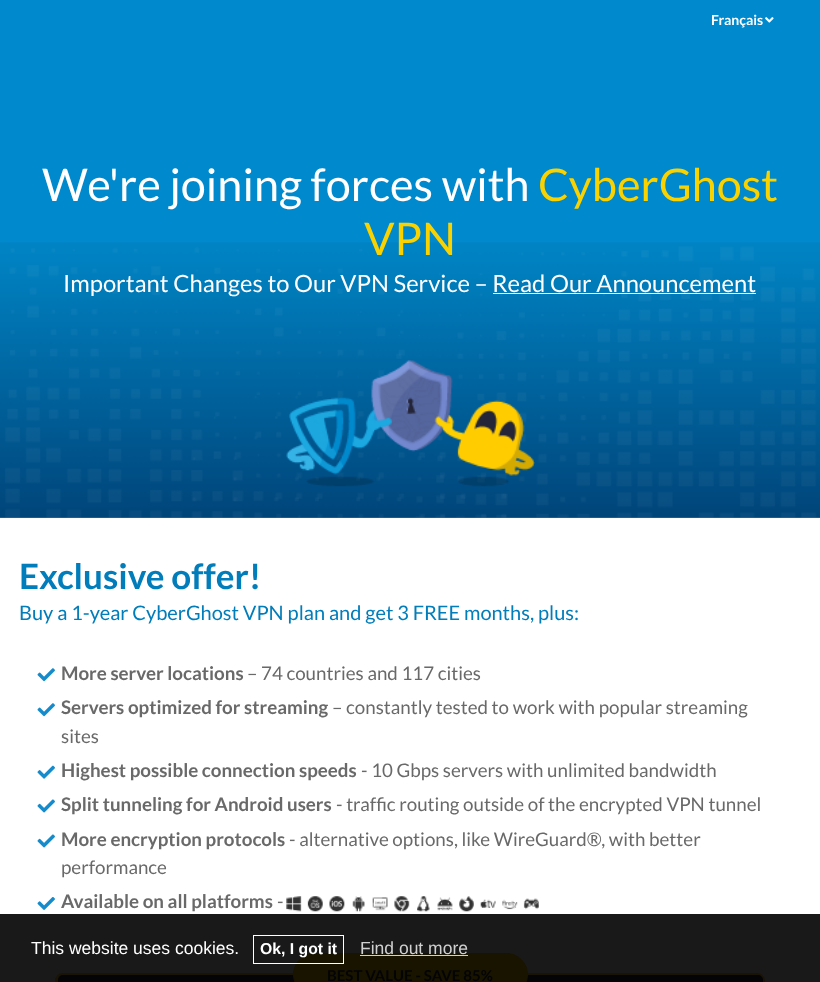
<!DOCTYPE html>
<meta charset="utf-8">
<style>body { margin: 0 } canvas { display: block }</style>
<canvas id="canvas" width="820" height="982"></canvas>
<img id="img1" src="images/1.png" hidden>
<img id="img2" src="images/2.png" hidden>
<img id="img3" src="images/3.png" hidden>
<img id="img4" src="images/4.png" hidden>
<img id="img5" src="images/5.png" hidden>
<img id="img6" src="images/6.png" hidden>
<img id="img7" src="images/7.png" hidden>
<img id="img8" src="images/8.png" hidden>
<script>
window.onload = function () {
    const canvas = document.getElementById('canvas');
    const context = canvas.getContext('2d');
    context.miterLimit = 4;
    context.fontKerning = 'normal';

    context.fillStyle = 'rgb(255, 255, 255)';
    context.fillRect(0, 0, 820, 982);
    context.fillStyle = 'rgb(25, 25, 25)';
    context.fillRect(0, 914, 820, 68);
    context.fillStyle = 'rgb(0, 137, 205)';
    context.fillRect(0, 0, 820, 518);
    context.drawImage(document.getElementById('img1'), 765, 17, 9, 6);
    context.drawImage(document.getElementById('img2'), 0, 242, 820, 276);
    context.fillStyle = 'rgb(255, 255, 255)';
    context.fillRect(493, 293, 263, 1);
    context.drawImage(document.getElementById('img3'), 286, 360, 249, 127);
    context.drawImage(document.getElementById('img4'), 37, 668, 18, 14);
    context.drawImage(document.getElementById('img4'), 37, 703, 18, 14);
    context.drawImage(document.getElementById('img5'), 37, 765, 18, 14);
    context.drawImage(document.getElementById('img6'), 37, 799, 18, 14);
    context.drawImage(document.getElementById('img6'), 37, 834, 18, 14);
    context.drawImage(document.getElementById('img7'), 37, 897, 18, 13);
    context.drawImage(document.getElementById('img8'), 286, 896, 253, 16);
    context.beginPath();
    context.roundRect(56.5, 974.5, 707, 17, 6.5);
    context.strokeStyle = 'rgb(25, 20, 4)';
    context.lineWidth = 3;
    context.stroke();
    context.fillStyle = 'rgb(4, 4, 6)';
    context.beginPath();
    context.roundRect(58, 975, 705, 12, 5);
    context.fill();
    context.fillStyle = 'rgb(25, 20, 0)';
    context.beginPath();
    context.roundRect(293.5, 953.5, 234, 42, 21);
    context.fill();
    context.strokeStyle = 'rgb(25, 20, 0)';
    context.lineWidth = 1;
    context.stroke();
    context.strokeStyle = 'rgb(255, 255, 255)';
    context.strokeRect(253.5, 935.5, 90, 28);
    context.fillStyle = 'rgb(209, 208, 204)';
    context.fillRect(360, 955, 108, 1);
    context.font = 'bold 14px Lato';
    context.fillStyle = 'rgb(255, 255, 255)';
    context.fillText('Français', 711, 25);
    context.font = '45px Lato';
    context.fillText('We\'re joining forces with', 42, 201);
    context.fillStyle = 'rgb(250, 210, 0)';
    context.fillText('CyberGhost', 538, 201);
    context.fillText('VPN', 364, 255);
    context.font = '23.75px Lato';
    context.fillStyle = 'rgb(255, 255, 255)';
    context.fillText('Important Changes to Our VPN Service – Read Our Announcement', 63, 292);
    context.font = 'bold 35px Lato';
    context.fillStyle = 'rgb(0, 125, 186)';
    context.fillText('Exclusive offer!', 19, 589);
    context.font = '20px Lato';
    context.fillText('Buy a 1-year CyberGhost VPN plan and get 3 FREE months, plus:', 19, 620);
    context.font = 'bold 18.75px Lato';
    context.fillStyle = 'rgb(105, 105, 105)';
    context.fillText('More server locations', 61, 680);
    context.font = '18.75px Lato';
    context.fillText('– 74 countries and 117 cities', 247, 680);
    context.font = 'bold 18.75px Lato';
    context.fillText('Servers optimized for streaming', 61, 714);
    context.font = '18.75px Lato';
    context.fillText('– constantly tested to work with popular streaming', 332, 714);
    context.fillText('sites', 61, 743);
    context.font = 'bold 18.75px Lato';
    context.fillText('Highest possible connection speeds', 61, 777);
    context.font = '18.75px Lato';
    context.fillText('- 10 Gbps servers with unlimited bandwidth', 361, 777);
    context.font = 'bold 18.75px Lato';
    context.fillText('Split tunneling for Android users', 61, 811);
    context.font = '18.75px Lato';
    context.fillText('- traffic routing outside of the encrypted VPN tunnel', 336, 811);
    context.font = 'bold 18.75px Lato';
    context.fillText('More encryption protocols', 61, 846);
    context.font = '18.75px Lato';
    context.fillText('- alternative options, like WireGuard®, with better', 289, 846);
    context.fillText('performance', 61, 874);
    context.font = 'bold 18.75px Lato';
    context.fillText('Available on all platforms', 61, 908);
    context.font = '18.75px Lato';
    context.fillText('-', 277, 908);
    context.font = 'bold 15px Lato';
    context.fillStyle = 'rgb(4, 4, 6)';
    context.fillText('BEST VALUE - SAVE 85%', 327, 981);
    context.font = '17.5px Liberation Sans';
    context.fillStyle = 'rgb(255, 255, 255)';
    context.fillText('This website uses cookies.', 31, 954);
    context.font = 'bold 15.75px Liberation Sans';
    context.fillText('Ok, I got it', 260, 954);
    context.font = '17.5px Liberation Sans';
    context.fillStyle = 'rgb(209, 209, 209)';
    context.fillText('Find out more', 360, 954);
};
</script>
